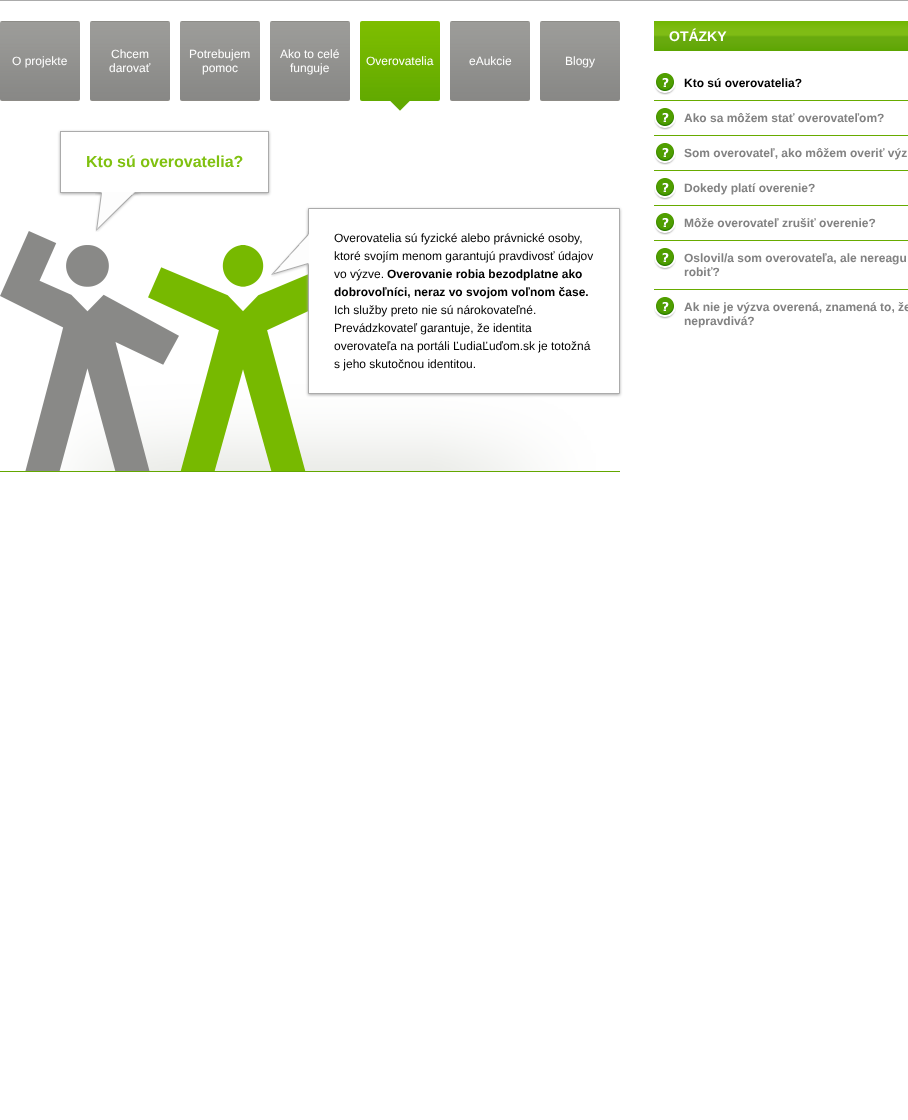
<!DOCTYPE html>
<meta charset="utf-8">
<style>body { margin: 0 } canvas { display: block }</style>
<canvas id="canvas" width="908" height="1120"></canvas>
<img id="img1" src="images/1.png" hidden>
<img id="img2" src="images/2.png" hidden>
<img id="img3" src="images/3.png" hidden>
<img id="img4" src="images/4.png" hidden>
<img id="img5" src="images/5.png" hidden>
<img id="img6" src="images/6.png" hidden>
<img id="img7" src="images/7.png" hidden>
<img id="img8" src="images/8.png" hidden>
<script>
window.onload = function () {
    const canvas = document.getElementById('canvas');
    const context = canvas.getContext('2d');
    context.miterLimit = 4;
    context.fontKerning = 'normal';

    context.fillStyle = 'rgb(255, 255, 255)';
    context.fillRect(0, 0, 908, 1120);
    context.fillStyle = 'rgb(171, 171, 171)';
    context.fillRect(0, 0, 908, 1);
    context.drawImage(document.getElementById('img1'), 0, 21, 80, 80);
    context.drawImage(document.getElementById('img1'), 90, 21, 80, 80);
    context.drawImage(document.getElementById('img1'), 180, 21, 80, 80);
    context.drawImage(document.getElementById('img1'), 270, 21, 80, 80);
    context.drawImage(document.getElementById('img2'), 360, 21, 80, 80);
    context.drawImage(document.getElementById('img3'), 390, 101, 20, 10);
    context.drawImage(document.getElementById('img1'), 450, 21, 80, 80);
    context.drawImage(document.getElementById('img1'), 540, 21, 80, 80);
    context.drawImage(document.getElementById('img4'), 0, 231, 620, 241);
    context.save();
    context.beginPath();
    context.moveTo(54, 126);
    context.lineTo(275, 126);
    context.lineTo(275, 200);
    context.lineTo(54, 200);
    context.closePath();
    context.moveTo(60, 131);
    context.lineTo(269, 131);
    context.lineTo(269, 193);
    context.lineTo(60, 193);
    context.closePath();
    context.clip('evenodd');
    context.filter = 'blur(1.5px)';
    context.beginPath();
    context.rect(60, 132, 209, 62);
    context.fill();
    context.filter = 'none';
    context.restore();
    context.strokeStyle = 'rgb(171, 171, 171)';
    context.strokeRect(60.5, 131.5, 208, 61);
    context.drawImage(document.getElementById('img5'), 95, 192, 46, 40);
    context.filter = 'blur(1.5px)';
    context.beginPath();
    context.rect(308, 209, 312, 186);
    context.fill();
    context.filter = 'none';
    context.fillStyle = 'rgb(255, 255, 255)';
    context.beginPath();
    context.rect(308.5, 208.5, 311, 185);
    context.fill();
    context.stroke();
    context.drawImage(document.getElementById('img6'), 271, 231, 38, 46);
    context.drawImage(document.getElementById('img7'), 654, 21, 254, 30);
    context.drawImage(document.getElementById('img8'), 654, 73, 22, 22);
    context.fillStyle = 'rgb(103, 171, 0)';
    context.fillRect(654, 100, 254, 1);
    context.drawImage(document.getElementById('img8'), 654, 108, 22, 22);
    context.fillRect(654, 135, 254, 1);
    context.drawImage(document.getElementById('img8'), 654, 143, 22, 22);
    context.fillRect(654, 170, 254, 1);
    context.drawImage(document.getElementById('img8'), 654, 178, 22, 22);
    context.fillRect(654, 205, 254, 1);
    context.drawImage(document.getElementById('img8'), 654, 213, 22, 22);
    context.fillRect(654, 240, 254, 1);
    context.drawImage(document.getElementById('img8'), 654, 248, 22, 22);
    context.fillRect(654, 289, 254, 1);
    context.drawImage(document.getElementById('img8'), 654, 297, 22, 22);
    context.font = '12px Liberation Sans';
    context.fillStyle = 'rgb(255, 255, 255)';
    context.fillText('O projekte', 12, 65);
    context.fillText('Chcem', 111, 58);
    context.fillText('darovať', 109, 72);
    context.fillText('Potrebujem', 189, 58);
    context.fillText('pomoc', 202, 72);
    context.fillText('Ako to celé', 280, 58);
    context.fillText('funguje', 290, 72);
    context.fillText('Overovatelia', 366, 65);
    context.fillText('eAukcie', 469, 65);
    context.fillText('Blogy', 565, 65);
    context.font = 'bold 16px Liberation Sans';
    context.fillStyle = 'rgb(128, 193, 16)';
    context.fillText('Kto sú overovatelia?', 86, 167);
    context.font = '12px Liberation Sans';
    context.fillStyle = 'rgb(0, 0, 0)';
    context.fillText('Overovatelia sú fyzické alebo právnické osoby,', 334, 242);
    context.fillText('ktoré svojím menom garantujú pravdivosť údajov', 334, 260);
    context.fillText('vo výzve.', 334, 278);
    context.font = 'bold 12px Liberation Sans';
    context.fillText('Overovanie robia bezodplatne ako', 387, 278);
    context.fillText('dobrovoľníci, neraz vo svojom voľnom čase.', 334, 296);
    context.font = '12px Liberation Sans';
    context.fillText('Ich služby preto nie sú nárokovateľné.', 334, 314);
    context.fillText('Prevádzkovateľ garantuje, že identita', 334, 332);
    context.fillText('overovateľa na portáli ĽudiaĽuďom.sk je totožná', 334, 350);
    context.fillText('s jeho skutočnou identitou.', 334, 368);
    context.font = 'bold 14px Liberation Sans';
    context.fillStyle = 'rgb(255, 255, 255)';
    context.fillText('OTÁZKY', 669, 41);
    context.font = 'bold 12px Liberation Sans';
    context.fillStyle = 'rgb(0, 0, 0)';
    context.fillText('Kto sú overovatelia?', 684, 87);
    context.fillStyle = 'rgb(130, 130, 130)';
    context.fillText('Ako sa môžem stať overovateľom?', 684, 122);
    context.fillText('Som overovateľ, ako môžem overiť výz', 684, 157);
    context.fillText('Dokedy platí overenie?', 684, 192);
    context.fillText('Môže overovateľ zrušiť overenie?', 684, 227);
    context.fillText('Oslovil/a som overovateľa, ale nereagu', 684, 262);
    context.fillText('robiť?', 684, 276);
    context.fillText('Ak nie je výzva overená, znamená to, že', 684, 311);
    context.fillText('nepravdivá?', 684, 325);
};
</script>
